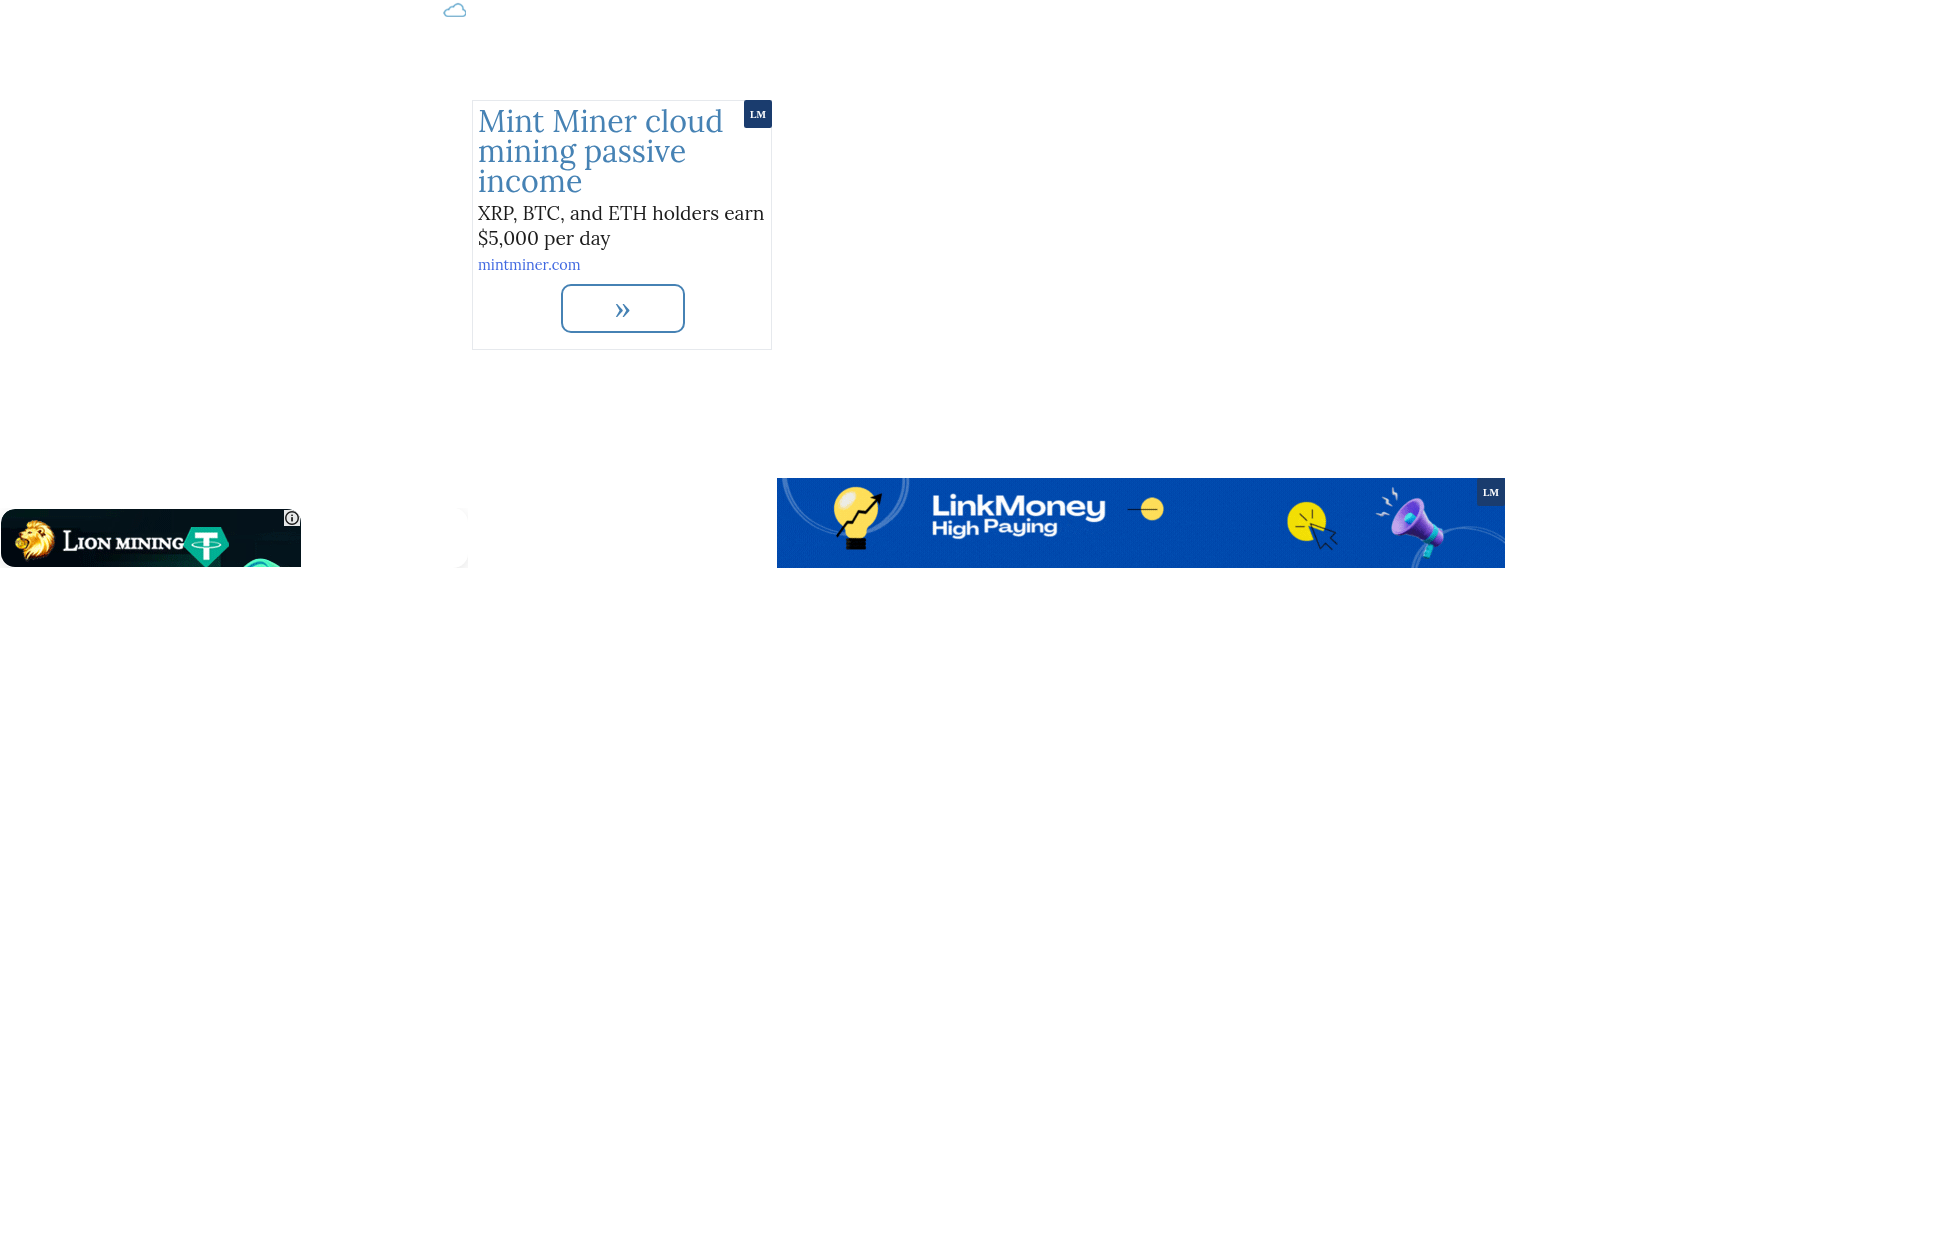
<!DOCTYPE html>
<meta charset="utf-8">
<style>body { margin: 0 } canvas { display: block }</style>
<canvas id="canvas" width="1938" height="1238"></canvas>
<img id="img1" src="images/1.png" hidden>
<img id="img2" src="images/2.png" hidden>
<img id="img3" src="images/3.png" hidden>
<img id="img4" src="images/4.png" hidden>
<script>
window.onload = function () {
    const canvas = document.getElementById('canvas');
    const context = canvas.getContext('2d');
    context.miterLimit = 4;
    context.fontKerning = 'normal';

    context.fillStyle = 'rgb(255, 255, 255)';
    context.fillRect(0, 0, 1938, 1238);
    context.drawImage(document.getElementById('img1'), 443, 2, 23, 15);
    context.drawImage(document.getElementById('img2'), 472, 100, 300, 250);
    context.drawImage(document.getElementById('img3'), 0, 508, 468, 60);
    context.drawImage(document.getElementById('img4'), 777, 478, 728, 90);
};
</script>
